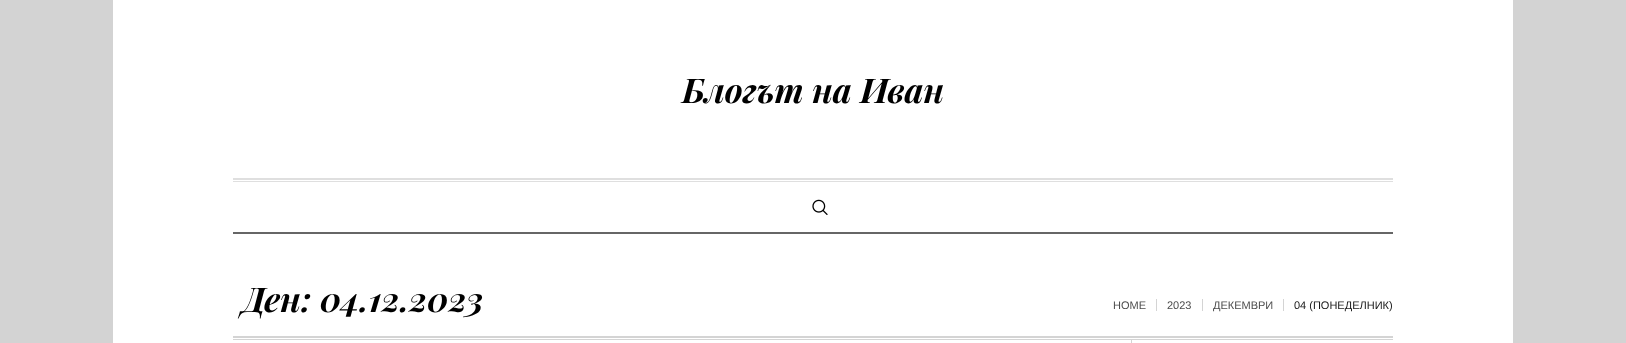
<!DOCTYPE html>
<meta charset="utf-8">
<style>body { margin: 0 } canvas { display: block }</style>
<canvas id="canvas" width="1626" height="343"></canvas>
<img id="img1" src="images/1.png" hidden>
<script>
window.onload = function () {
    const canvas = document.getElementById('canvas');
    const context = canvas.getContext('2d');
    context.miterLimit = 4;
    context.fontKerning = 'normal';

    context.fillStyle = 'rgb(211, 211, 211)';
    context.fillRect(0, 0, 1626, 343);
    context.fillStyle = 'rgb(255, 255, 255)';
    context.fillRect(113, 0, 1400, 343);
    context.fillStyle = 'rgb(223, 223, 223)';
    context.fillRect(233, 181, 1160, 1);
    context.fillRect(233, 178, 1160, 2);
    context.fillStyle = 'rgb(102, 102, 102)';
    context.fillRect(233, 232, 1160, 2);
    context.drawImage(document.getElementById('img1'), 812, 199, 16, 16);
    context.fillStyle = 'rgb(212, 212, 212)';
    context.fillRect(233, 336, 1160, 2);
    context.fillRect(233, 339, 1160, 1);
    context.fillRect(1156, 299, 1, 12);
    context.fillRect(1202, 299, 1, 12);
    context.fillRect(1283, 299, 1, 12);
    context.fillRect(1131, 340, 1, 3);
    context.font = 'italic bold 34px Playfair Display';
    context.fillStyle = 'rgb(0, 0, 0)';
    context.fillText('Блогът на Иван', 682, 103);
    context.fillText('Ден: 04.12.2023', 243, 312);
    context.font = '11px Liberation Sans';
    context.fillStyle = 'rgb(77, 77, 77)';
    context.fillText('HOME', 1113, 309);
    context.fillText('2023', 1167, 309);
    context.fillText('ДЕКЕМВРИ', 1213, 309);
    context.fillStyle = 'rgb(26, 26, 26)';
    context.fillText('04 (ПОНЕДЕЛНИК)', 1294, 309);
};
</script>
